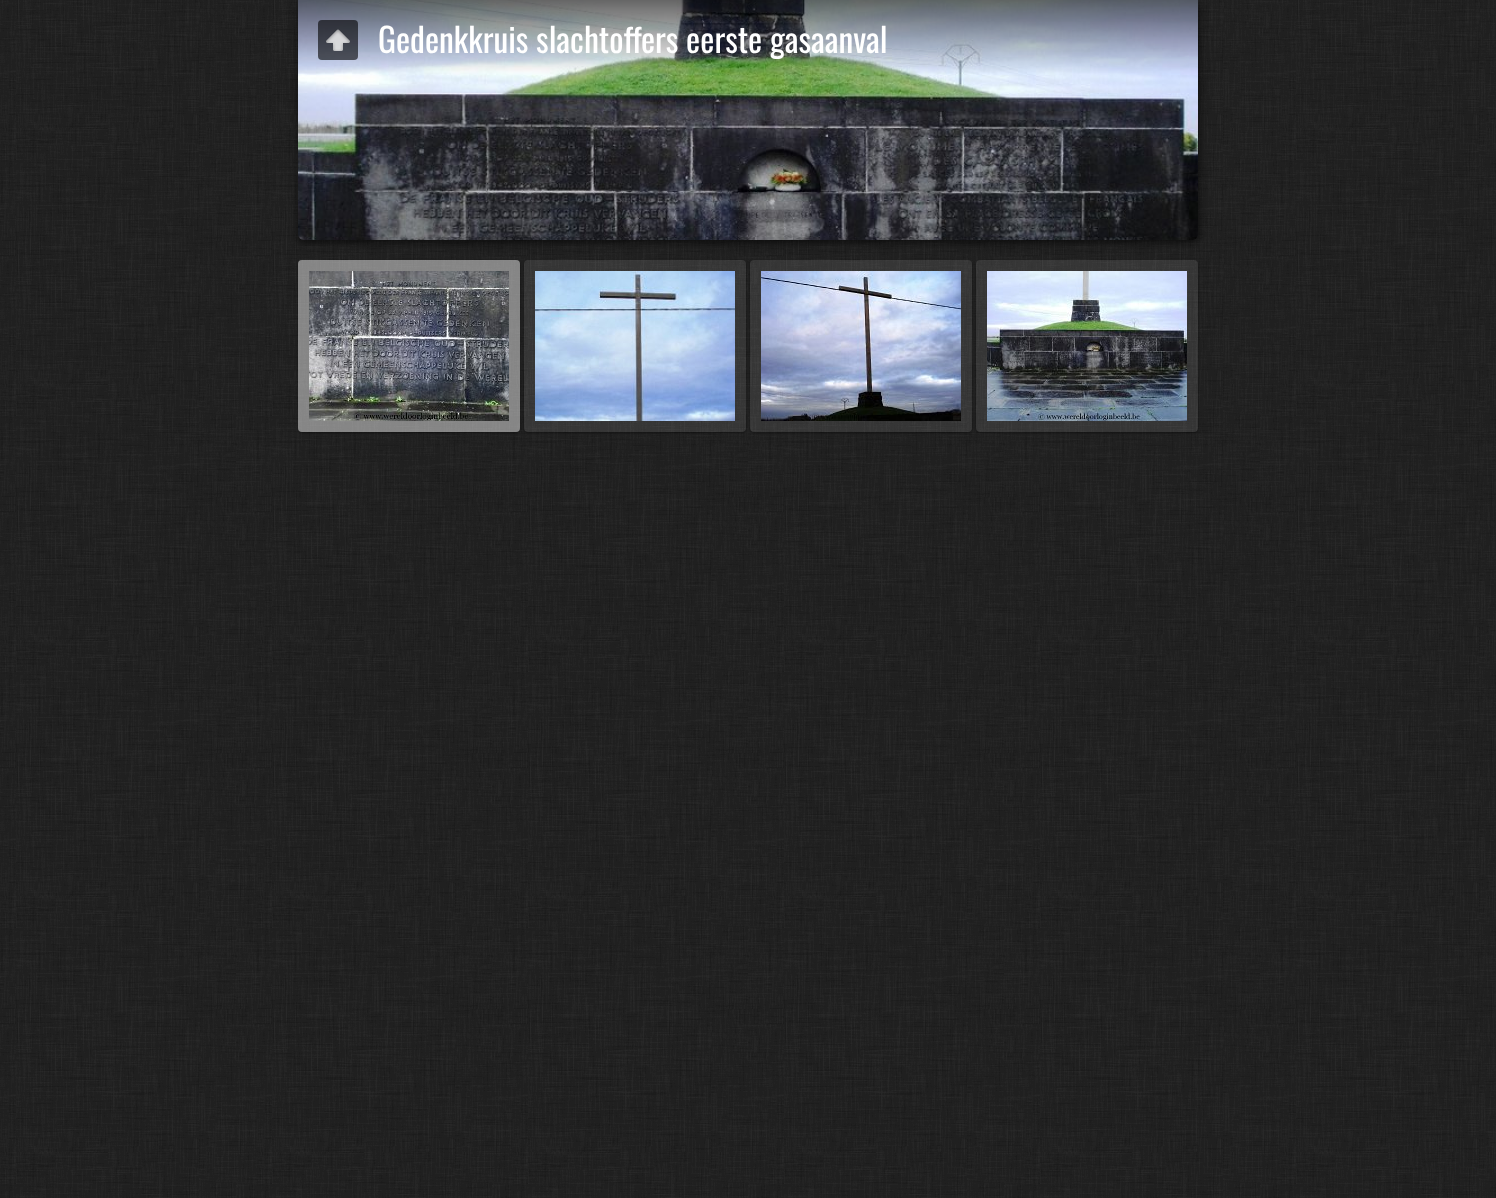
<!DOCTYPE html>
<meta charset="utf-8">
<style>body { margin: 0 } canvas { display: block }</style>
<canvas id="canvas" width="1496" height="1198"></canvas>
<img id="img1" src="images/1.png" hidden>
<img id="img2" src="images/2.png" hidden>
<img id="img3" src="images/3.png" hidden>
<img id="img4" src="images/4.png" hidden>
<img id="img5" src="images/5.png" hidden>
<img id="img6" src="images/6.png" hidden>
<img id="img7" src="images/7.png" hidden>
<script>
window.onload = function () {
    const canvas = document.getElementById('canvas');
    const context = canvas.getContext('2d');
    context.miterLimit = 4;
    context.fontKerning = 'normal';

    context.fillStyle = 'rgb(34, 34, 34)';
    context.fillRect(0, 0, 1496, 1198);
    context.drawImage(document.getElementById('img1'), 0, 0, 1496, 1198);
    context.fillStyle = 'rgba(0, 0, 0, 0.6)';
    context.filter = 'blur(4px)';
    context.beginPath();
    context.roundRect(299, 3, 900, 240, 6);
    context.fill();
    context.filter = 'none';
    context.drawImage(document.getElementById('img2'), 298, 0, 900, 240);
    context.beginPath();
    context.roundRect(318, 20, 40, 40, 4);
    context.fill();
    context.drawImage(document.getElementById('img3'), 326, 29, 24, 22);
    context.save();
    context.beginPath();
    context.moveTo(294, 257);
    context.lineTo(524, 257);
    context.lineTo(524, 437);
    context.lineTo(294, 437);
    context.closePath();
    context.moveTo(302, 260);
    context.lineTo(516, 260);
    context.bezierCurveTo(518, 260, 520, 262, 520, 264);
    context.lineTo(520, 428);
    context.bezierCurveTo(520, 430, 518, 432, 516, 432);
    context.lineTo(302, 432);
    context.bezierCurveTo(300, 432, 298, 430, 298, 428);
    context.lineTo(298, 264);
    context.bezierCurveTo(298, 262, 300, 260, 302, 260);
    context.closePath();
    context.clip('evenodd');
    context.fillStyle = 'rgba(0, 0, 0, 0.4)';
    context.filter = 'blur(1px)';
    context.beginPath();
    context.roundRect(298, 261, 222, 172, 4);
    context.fill();
    context.filter = 'none';
    context.restore();
    context.fillStyle = 'rgba(255, 255, 255, 0.1)';
    context.beginPath();
    context.roundRect(298, 260, 222, 172, 4);
    context.fill();
    context.fillStyle = 'rgba(255, 255, 255, 0.4)';
    context.beginPath();
    context.roundRect(298, 260, 222, 172, 4);
    context.fill();
    context.drawImage(document.getElementById('img4'), 309, 271, 200, 150);
    context.save();
    context.beginPath();
    context.moveTo(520, 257);
    context.lineTo(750, 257);
    context.lineTo(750, 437);
    context.lineTo(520, 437);
    context.closePath();
    context.moveTo(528, 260);
    context.lineTo(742, 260);
    context.bezierCurveTo(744, 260, 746, 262, 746, 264);
    context.lineTo(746, 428);
    context.bezierCurveTo(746, 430, 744, 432, 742, 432);
    context.lineTo(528, 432);
    context.bezierCurveTo(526, 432, 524, 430, 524, 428);
    context.lineTo(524, 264);
    context.bezierCurveTo(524, 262, 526, 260, 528, 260);
    context.closePath();
    context.clip('evenodd');
    context.fillStyle = 'rgba(0, 0, 0, 0.4)';
    context.filter = 'blur(1px)';
    context.beginPath();
    context.roundRect(524, 261, 222, 172, 4);
    context.fill();
    context.filter = 'none';
    context.restore();
    context.fillStyle = 'rgba(255, 255, 255, 0.1)';
    context.beginPath();
    context.roundRect(524, 260, 222, 172, 4);
    context.fill();
    context.drawImage(document.getElementById('img5'), 535, 271, 200, 150);
    context.save();
    context.beginPath();
    context.moveTo(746, 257);
    context.lineTo(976, 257);
    context.lineTo(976, 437);
    context.lineTo(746, 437);
    context.closePath();
    context.moveTo(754, 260);
    context.lineTo(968, 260);
    context.bezierCurveTo(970, 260, 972, 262, 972, 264);
    context.lineTo(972, 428);
    context.bezierCurveTo(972, 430, 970, 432, 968, 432);
    context.lineTo(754, 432);
    context.bezierCurveTo(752, 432, 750, 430, 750, 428);
    context.lineTo(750, 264);
    context.bezierCurveTo(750, 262, 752, 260, 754, 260);
    context.closePath();
    context.clip('evenodd');
    context.fillStyle = 'rgba(0, 0, 0, 0.4)';
    context.filter = 'blur(1px)';
    context.beginPath();
    context.roundRect(750, 261, 222, 172, 4);
    context.fill();
    context.filter = 'none';
    context.restore();
    context.beginPath();
    context.roundRect(750, 260, 222, 172, 4);
    context.fill();
    context.drawImage(document.getElementById('img6'), 761, 271, 200, 150);
    context.save();
    context.beginPath();
    context.moveTo(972, 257);
    context.lineTo(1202, 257);
    context.lineTo(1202, 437);
    context.lineTo(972, 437);
    context.closePath();
    context.moveTo(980, 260);
    context.lineTo(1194, 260);
    context.bezierCurveTo(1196, 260, 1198, 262, 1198, 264);
    context.lineTo(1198, 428);
    context.bezierCurveTo(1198, 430, 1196, 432, 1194, 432);
    context.lineTo(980, 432);
    context.bezierCurveTo(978, 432, 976, 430, 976, 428);
    context.lineTo(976, 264);
    context.bezierCurveTo(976, 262, 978, 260, 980, 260);
    context.closePath();
    context.clip('evenodd');
    context.fillStyle = 'rgba(0, 0, 0, 0.4)';
    context.filter = 'blur(1px)';
    context.beginPath();
    context.roundRect(976, 261, 222, 172, 4);
    context.fill();
    context.filter = 'none';
    context.restore();
    context.beginPath();
    context.roundRect(976, 260, 222, 172, 4);
    context.fill();
    context.drawImage(document.getElementById('img7'), 987, 271, 200, 150);
    context.font = '33.6px Oswald';
    context.fillStyle = 'rgb(255, 255, 255)';
    context.fillText('Gedenkkruis slachtoffers eerste gasaanval', 378, 53);
};
</script>
